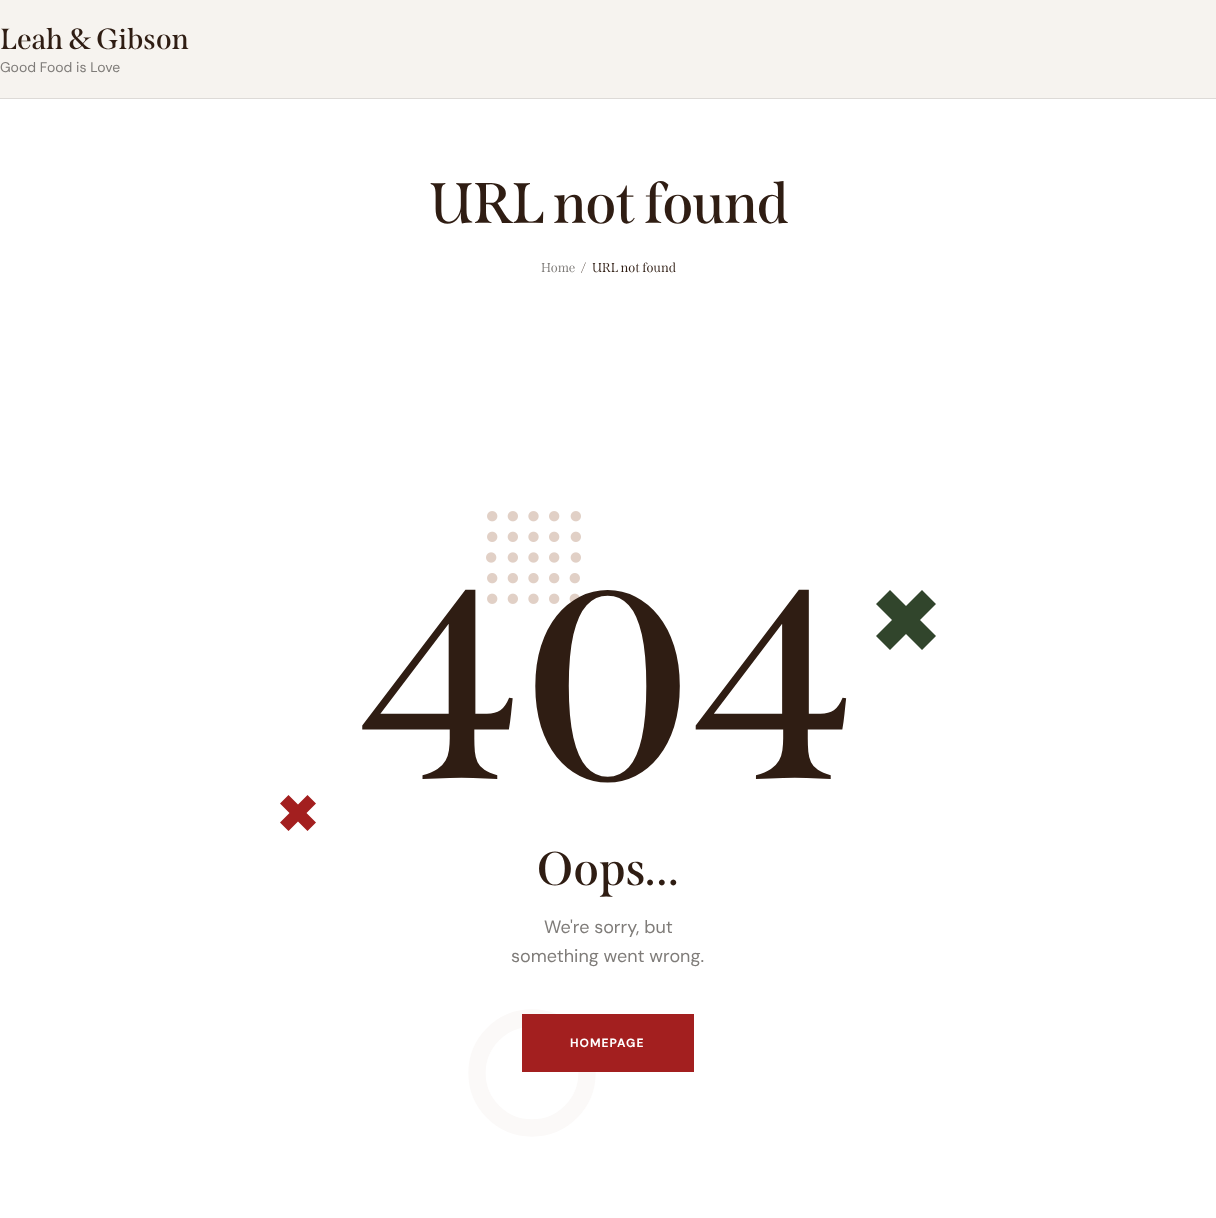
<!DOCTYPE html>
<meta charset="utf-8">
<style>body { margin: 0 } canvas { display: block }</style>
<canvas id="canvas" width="1216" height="1218"></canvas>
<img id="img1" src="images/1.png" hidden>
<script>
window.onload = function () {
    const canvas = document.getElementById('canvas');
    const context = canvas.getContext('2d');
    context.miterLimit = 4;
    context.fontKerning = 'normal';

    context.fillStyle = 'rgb(246, 243, 239)';
    context.fillRect(0, 0, 1216, 1218);
    context.fillStyle = 'rgb(221, 218, 215)';
    context.fillRect(0, 98, 1216, 1);
    context.fillStyle = 'rgb(255, 255, 255)';
    context.fillRect(0, 99, 1216, 1119);
    context.drawImage(document.getElementById('img1'), 486, 511, 95, 93);
    context.fillStyle = 'rgb(49, 69, 44)';
    context.beginPath();
    context.moveTo(876, 636);
    context.lineTo(892, 620);
    context.lineTo(876, 604);
    context.lineTo(890, 590);
    context.lineTo(906, 606);
    context.lineTo(922, 590);
    context.lineTo(936, 604);
    context.lineTo(920, 620);
    context.lineTo(936, 636);
    context.lineTo(922, 650);
    context.lineTo(906, 634);
    context.lineTo(890, 650);
    context.closePath();
    context.fill();
    context.fillStyle = 'rgb(163, 31, 31)';
    context.beginPath();
    context.moveTo(280, 822.5);
    context.lineTo(289.5, 813);
    context.lineTo(280, 803.5);
    context.lineTo(288.5, 795);
    context.lineTo(298, 804.5);
    context.lineTo(307.5, 795);
    context.lineTo(316, 803.5);
    context.lineTo(306.5, 813);
    context.lineTo(316, 822.5);
    context.lineTo(307.5, 831);
    context.lineTo(298, 821.5);
    context.lineTo(288.5, 831);
    context.closePath();
    context.fill();
    context.beginPath();
    context.arc(532, 1073, 55, 0, 2 * Math.PI);
    context.strokeStyle = 'rgb(251, 249, 248)';
    context.lineWidth = 17.3;
    context.stroke();
    context.fillRect(522, 1014, 172, 58);
    context.font = '600 29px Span';
    context.fillStyle = 'rgb(47, 29, 19)';
    context.fillText('Leah & Gibson', 0, 49);
    context.font = '14px DM Sans';
    context.fillStyle = 'rgb(127, 124, 121)';
    context.fillText('Good Food is Love', 0, 72);
    context.letterSpacing = '-1.1px';
    context.font = '600 57px Span';
    context.fillStyle = 'rgb(47, 29, 19)';
    context.fillText('URL not found', 429, 223);
    context.letterSpacing = '0px';
    context.font = '13px Span';
    context.fillStyle = 'rgb(127, 124, 121)';
    context.fillText('Home', 541, 272);
    context.fillStyle = 'rgb(47, 29, 19)';
    context.fillText('/', 581, 272);
    context.fillText('URL not found', 592, 272);
    context.font = '600 270px Span';
    context.fillText('404', 362, 779);
    context.font = '600 47px Span';
    context.fillText('Oops...', 537, 885);
    context.font = '18px DM Sans';
    context.fillStyle = 'rgb(127, 124, 121)';
    context.fillText('We\'re sorry, but', 544, 933);
    context.fillText('something went wrong.', 511, 962);
    context.letterSpacing = '1px';
    context.font = 'bold 12px DM Sans';
    context.fillStyle = 'rgb(255, 255, 255)';
    context.fillText('HOMEPAGE', 570, 1047);
};
</script>
